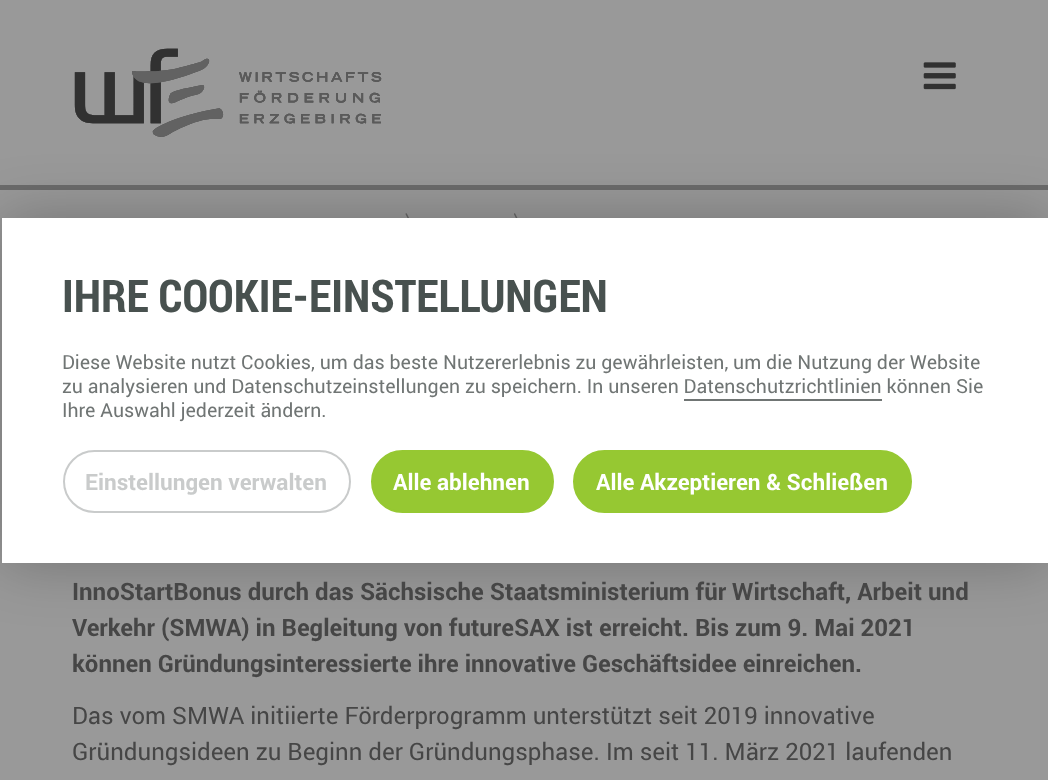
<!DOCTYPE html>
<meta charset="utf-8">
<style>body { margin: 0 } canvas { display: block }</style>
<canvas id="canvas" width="1048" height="780"></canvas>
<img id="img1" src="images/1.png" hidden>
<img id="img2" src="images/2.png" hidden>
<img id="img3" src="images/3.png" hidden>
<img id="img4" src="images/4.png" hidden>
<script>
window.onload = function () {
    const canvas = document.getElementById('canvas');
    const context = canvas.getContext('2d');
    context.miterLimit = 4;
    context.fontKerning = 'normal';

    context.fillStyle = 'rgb(153, 153, 153)';
    context.fillRect(0, 0, 1048, 780);
    context.drawImage(document.getElementById('img1'), 74, 48, 308, 89);
    context.drawImage(document.getElementById('img2'), 923, 62, 33, 28);
    context.fillStyle = 'rgb(107, 107, 107)';
    context.fillRect(0, 185, 1048, 5);
    context.drawImage(document.getElementById('img3'), 405, 213, 4, 5);
    context.drawImage(document.getElementById('img4'), 514, 213, 4, 5);
    context.save();
    context.beginPath();
    context.moveTo(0, 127);
    context.lineTo(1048, 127);
    context.lineTo(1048, 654);
    context.lineTo(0, 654);
    context.closePath();
    context.moveTo(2, 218);
    context.lineTo(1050, 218);
    context.lineTo(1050, 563);
    context.lineTo(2, 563);
    context.closePath();
    context.clip('evenodd');
    context.fillStyle = 'rgba(0, 0, 0, 0.25)';
    context.filter = 'blur(30px)';
    context.beginPath();
    context.rect(2, 218, 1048, 345);
    context.fill();
    context.filter = 'none';
    context.restore();
    context.fillStyle = 'rgb(255, 255, 255)';
    context.fillRect(2, 218, 1046, 345);
    context.fillStyle = 'rgb(112, 117, 116)';
    context.fillRect(684, 399, 198, 2);
    context.beginPath();
    context.roundRect(64, 451, 286, 61, 30.5);
    context.strokeStyle = 'rgb(201, 203, 203)';
    context.lineWidth = 2;
    context.stroke();
    context.fillStyle = 'rgb(150, 200, 50)';
    context.beginPath();
    context.roundRect(372, 451, 181, 61, 30.5);
    context.fill();
    context.strokeStyle = 'rgb(150, 200, 50)';
    context.stroke();
    context.beginPath();
    context.roundRect(574, 451, 337, 61, 30.5);
    context.fill();
    context.stroke();
    context.font = 'bold 45px Roboto Condensed';
    context.fillStyle = 'rgb(72, 81, 79)';
    context.fillText('IHRE COOKIE-EINSTELLUNGEN', 62, 312);
    context.font = '19.5px Roboto';
    context.fillStyle = 'rgb(112, 117, 116)';
    context.fillText('Diese Website nutzt Cookies, um das beste Nutzererlebnis zu gewährleisten, um die Nutzung der Website', 62, 369);
    context.fillText('zu analysieren und Datenschutzeinstellungen zu speichern. In unseren Datenschutzrichtlinien können Sie', 62, 393);
    context.fillText('Ihre Auswahl jederzeit ändern.', 62, 417);
    context.font = 'bold 22.5px Roboto';
    context.fillStyle = 'rgb(201, 203, 203)';
    context.fillText('Einstellungen verwalten', 85, 490);
    context.fillStyle = 'rgb(255, 255, 255)';
    context.fillText('Alle ablehnen', 393, 490);
    context.fillText('Alle Akzeptieren & Schließen', 596, 490);
    context.font = 'bold 24px Roboto';
    context.fillStyle = 'rgb(70, 70, 70)';
    context.fillText('InnoStartBonus durch das Sächsische Staatsministerium für Wirtschaft, Arbeit und', 72, 600);
    context.fillText('Verkehr (SMWA) in Begleitung von futureSAX ist erreicht. Bis zum 9. Mai 2021', 72, 636);
    context.fillText('können Gründungsinteressierte ihre innovative Geschäftsidee einreichen.', 72, 672);
    context.font = '24px Roboto';
    context.fillText('Das vom SMWA initiierte Förderprogramm unterstützt seit 2019 innovative', 72, 724);
    context.fillText('Gründungsideen zu Beginn der Gründungsphase. Im seit 11. März 2021 laufenden', 72, 760);
};
</script>
